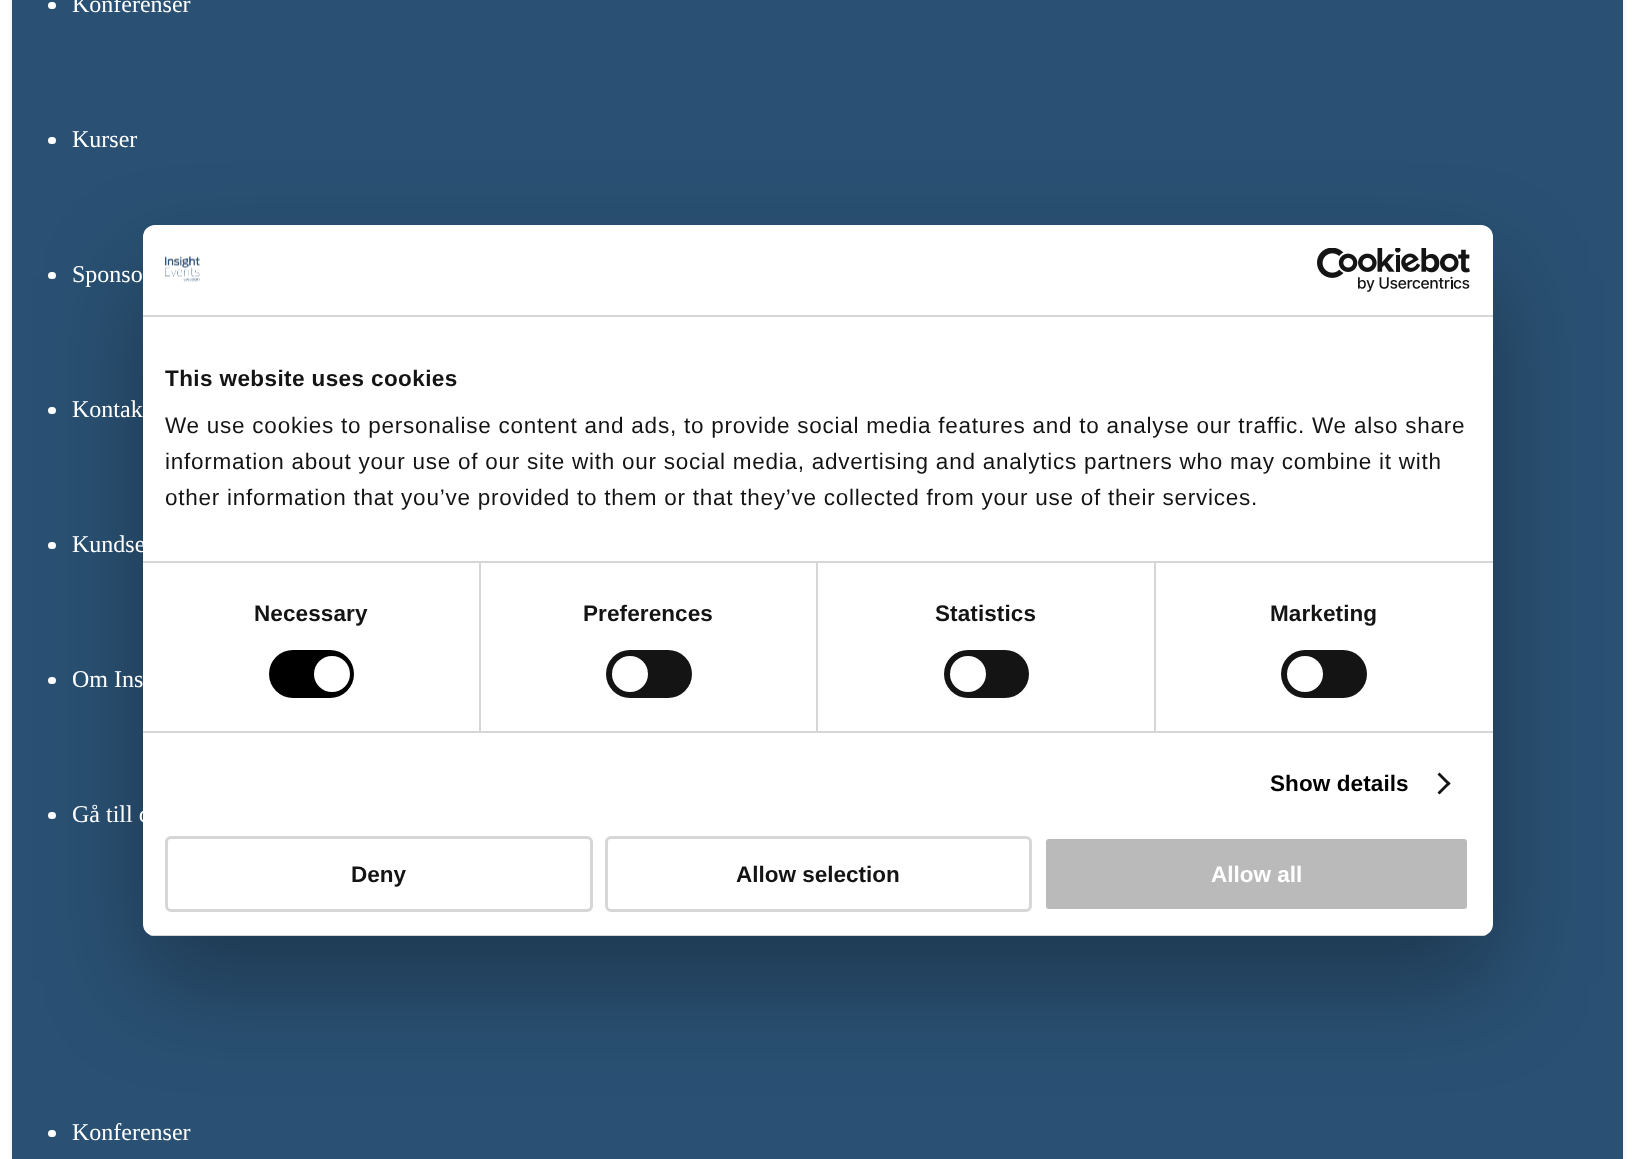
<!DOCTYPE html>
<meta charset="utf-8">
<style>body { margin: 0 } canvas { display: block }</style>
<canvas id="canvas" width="1635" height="1159"></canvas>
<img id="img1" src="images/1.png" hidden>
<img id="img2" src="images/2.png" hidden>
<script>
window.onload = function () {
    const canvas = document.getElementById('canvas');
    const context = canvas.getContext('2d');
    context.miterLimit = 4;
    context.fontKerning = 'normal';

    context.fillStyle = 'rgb(255, 255, 255)';
    context.fillRect(0, 0, 1635, 1159);
    context.fillStyle = 'rgb(42, 81, 115)';
    context.filter = 'blur(4px)';
    context.beginPath();
    context.rect(18, -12, 1599, 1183);
    context.fill();
    context.filter = 'none';
    context.fillRect(12, 0, 1611, 1159);
    context.fillStyle = 'rgb(255, 255, 255)';
    context.beginPath();
    context.roundRect(48, 2, 8, 7, 3.5);
    context.fill();
    context.beginPath();
    context.roundRect(48, 137, 8, 7, 3.5);
    context.fill();
    context.beginPath();
    context.roundRect(48, 272, 8, 7, 3.5);
    context.fill();
    context.beginPath();
    context.roundRect(48, 407, 8, 7, 3.5);
    context.fill();
    context.beginPath();
    context.roundRect(48, 542, 8, 7, 3.5);
    context.fill();
    context.beginPath();
    context.roundRect(48, 677, 8, 7, 3.5);
    context.fill();
    context.beginPath();
    context.roundRect(48, 812, 8, 7, 3.5);
    context.fill();
    context.beginPath();
    context.roundRect(48, 1130, 8, 7, 3.5);
    context.fill();
    context.fillStyle = 'rgba(0, 0, 0, 0.3)';
    context.filter = 'blur(51px)';
    context.beginPath();
    context.roundRect(143, 273, 1350, 711, 12);
    context.fill();
    context.filter = 'none';
    context.fillStyle = 'rgb(255, 255, 255)';
    context.beginPath();
    context.roundRect(143, 225, 1350, 711, 12);
    context.fill();
    context.fillStyle = 'rgb(214, 214, 214)';
    context.fillRect(143, 315, 1350, 2);
    context.drawImage(document.getElementById('img1'), 165, 256, 35, 26);
    context.drawImage(document.getElementById('img2'), 1317, 248, 153, 44);
    context.fillRect(143, 561, 1350, 2);
    context.fillRect(143, 731, 1350, 2);
    context.fillRect(479, 563, 2, 168);
    context.fillStyle = 'rgb(0, 0, 0)';
    context.beginPath();
    context.roundRect(269, 650, 85, 48, 24);
    context.fill();
    context.fillStyle = 'rgb(255, 255, 255)';
    context.beginPath();
    context.arc(332, 674, 18, 0, 2 * Math.PI);
    context.fill();
    context.fillStyle = 'rgb(214, 214, 214)';
    context.fillRect(816, 563, 2, 168);
    context.fillStyle = 'rgb(20, 20, 20)';
    context.beginPath();
    context.roundRect(606, 650, 86, 48, 24);
    context.fill();
    context.fillStyle = 'rgb(255, 255, 255)';
    context.beginPath();
    context.arc(630, 674, 18, 0, 2 * Math.PI);
    context.fill();
    context.fillStyle = 'rgb(214, 214, 214)';
    context.fillRect(1154, 563, 2, 168);
    context.fillStyle = 'rgb(20, 20, 20)';
    context.beginPath();
    context.roundRect(944, 650, 85, 48, 24);
    context.fill();
    context.fillStyle = 'rgb(255, 255, 255)';
    context.beginPath();
    context.arc(968, 674, 18, 0, 2 * Math.PI);
    context.fill();
    context.fillStyle = 'rgb(20, 20, 20)';
    context.beginPath();
    context.roundRect(1281, 650, 86, 48, 24);
    context.fill();
    context.fillStyle = 'rgb(255, 255, 255)';
    context.beginPath();
    context.arc(1305, 674, 18, 0, 2 * Math.PI);
    context.fill();
    context.fillStyle = 'rgb(20, 20, 20)';
    context.beginPath();
    context.moveTo(1439.5, 772.5);
    context.lineTo(1450.5, 783.5);
    context.lineTo(1448.5, 785.5);
    context.lineTo(1437.5, 774.5);
    context.closePath();
    context.fill();
    context.beginPath();
    context.moveTo(1448.5, 781.5);
    context.lineTo(1450.5, 783.5);
    context.lineTo(1439.5, 794.5);
    context.lineTo(1437.5, 792.5);
    context.closePath();
    context.fill();
    context.save();
    context.beginPath();
    context.roundRect(143, 225, 1350, 711, 12);
    context.clip();
    context.fillStyle = 'rgb(214, 214, 214)';
    context.fillRect(143, 935, 1350, 1);
    context.restore();
    context.beginPath();
    context.roundRect(166.5, 837.5, 425, 73, 4.5);
    context.strokeStyle = 'rgb(214, 214, 214)';
    context.lineWidth = 3;
    context.stroke();
    context.beginPath();
    context.roundRect(606.5, 837.5, 424, 73, 4.5);
    context.strokeStyle = 'rgb(215, 215, 215)';
    context.stroke();
    context.fillStyle = 'rgb(186, 186, 186)';
    context.beginPath();
    context.roundRect(1044.5, 837.5, 424, 73, 4.5);
    context.fill();
    context.strokeStyle = 'rgb(255, 255, 255)';
    context.stroke();
    context.font = '24px Liberation Serif';
    context.fillStyle = 'rgb(255, 255, 255)';
    context.fillText('Konferenser', 72, 12);
    context.fillText('Kurser', 72, 147);
    context.fillText('Sponso', 72, 282);
    context.fillText('Kontak', 72, 417);
    context.fillText('Kundse', 72, 552);
    context.fillText('Om Ins', 72, 687);
    context.fillText('Gå till c', 72, 822);
    context.fillText('Konferenser', 72, 1140);
    context.letterSpacing = '0.4px';
    context.font = 'bold 22.5px Liberation Sans';
    context.fillStyle = 'rgb(20, 20, 20)';
    context.fillText('This website uses cookies', 165, 386);
    context.letterSpacing = '0.75px';
    context.font = '22.5px Liberation Sans';
    context.fillText('We use cookies to personalise content and ads, to provide social media features and to analyse our traffic. We also share', 165, 433);
    context.fillText('information about your use of our site with our social media, advertising and analytics partners who may combine it with', 165, 469);
    context.fillText('other information that you’ve provided to them or that they’ve collected from your use of their services.', 165, 505);
    context.letterSpacing = '0.1px';
    context.font = 'bold 22.5px Liberation Sans';
    context.fillText('Necessary', 254, 621);
    context.fillText('Preferences', 583, 621);
    context.fillText('Statistics', 935, 621);
    context.fillText('Marketing', 1270, 621);
    context.fillStyle = 'rgb(0, 0, 0)';
    context.fillText('Show details', 1270, 791);
    context.letterSpacing = '0px';
    context.fillStyle = 'rgb(20, 20, 20)';
    context.fillText('Deny', 351, 882);
    context.fillText('Allow selection', 736, 882);
    context.fillStyle = 'rgb(255, 255, 255)';
    context.fillText('Allow all', 1211, 882);
};
</script>
